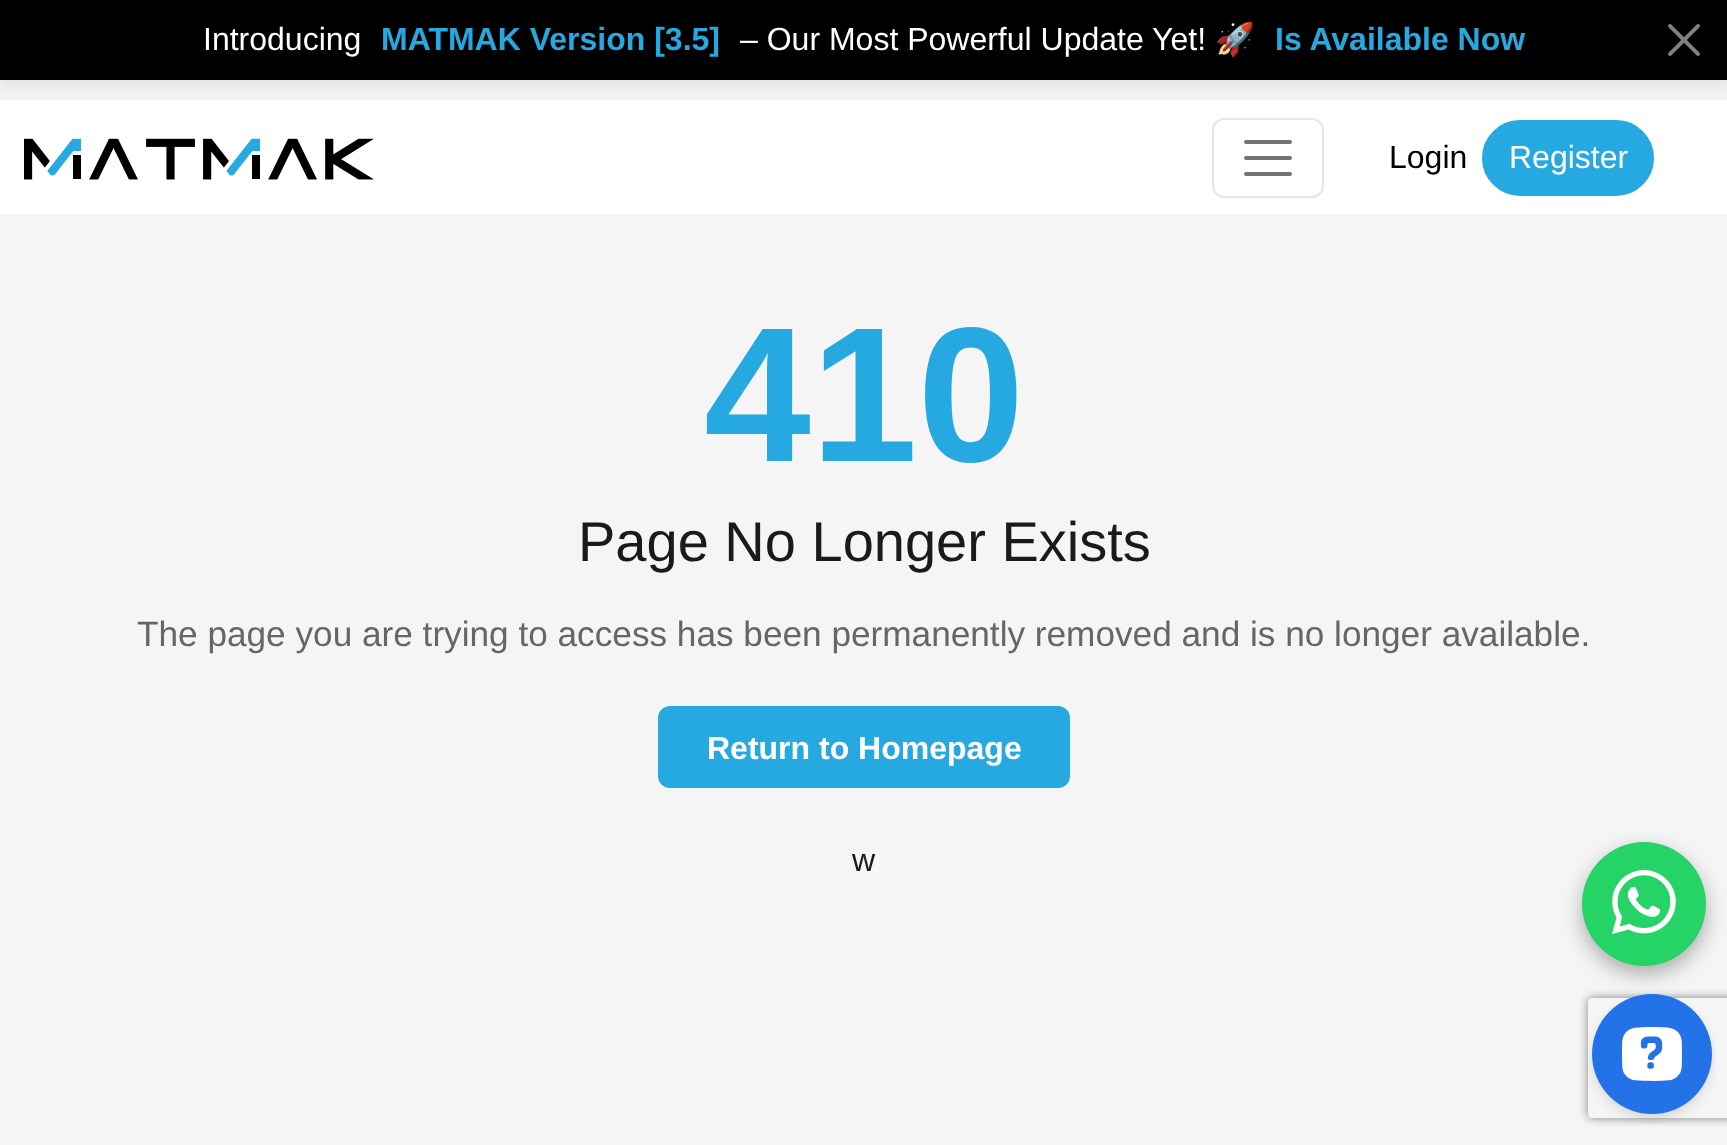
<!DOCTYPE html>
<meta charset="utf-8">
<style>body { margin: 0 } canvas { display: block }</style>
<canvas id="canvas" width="1727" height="1145"></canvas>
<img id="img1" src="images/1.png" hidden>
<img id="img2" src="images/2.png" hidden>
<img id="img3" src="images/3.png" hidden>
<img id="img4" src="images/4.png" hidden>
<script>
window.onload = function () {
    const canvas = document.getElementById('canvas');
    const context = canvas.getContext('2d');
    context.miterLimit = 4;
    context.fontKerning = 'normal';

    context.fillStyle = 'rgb(245, 245, 245)';
    context.fillRect(0, 0, 1727, 1145);
    context.fillStyle = 'rgb(255, 255, 255)';
    context.fillRect(0, 100, 1727, 114);
    context.fillStyle = 'rgba(0, 0, 0, 0.1)';
    context.filter = 'blur(10px)';
    context.beginPath();
    context.rect(0, 4, 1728, 80);
    context.fill();
    context.filter = 'none';
    context.fillStyle = 'rgb(0, 0, 0)';
    context.fillRect(0, 0, 1727, 80);
    context.drawImage(document.getElementById('img1'), 1668, 24, 32, 32);
    context.drawImage(document.getElementById('img2'), 24, 138, 350, 42);
    context.beginPath();
    context.roundRect(1213, 119, 110, 78, 11);
    context.strokeStyle = 'rgb(230, 230, 230)';
    context.lineWidth = 2;
    context.stroke();
    context.beginPath();
    context.moveTo(1246, 142);
    context.lineTo(1290, 142);
    context.moveTo(1246, 158);
    context.lineTo(1290, 158);
    context.moveTo(1246, 174);
    context.lineTo(1290, 174);
    context.strokeStyle = 'rgb(115, 115, 115)';
    context.lineWidth = 4;
    context.lineCap = 'round';
    context.stroke();
    context.fillStyle = 'rgb(37, 169, 224)';
    context.beginPath();
    context.roundRect(1483, 121, 170, 74, 37);
    context.fill();
    context.strokeStyle = 'rgb(37, 169, 224)';
    context.lineWidth = 2;
    context.stroke();
    context.beginPath();
    context.roundRect(658, 706, 412, 82, 12);
    context.fill();
    context.fillStyle = 'rgba(0, 0, 0, 0.3)';
    context.filter = 'blur(10px)';
    context.beginPath();
    context.roundRect(1582, 850, 124, 124, 62);
    context.fill();
    context.filter = 'none';
    context.fillStyle = 'rgb(37, 211, 102)';
    context.beginPath();
    context.arc(1644, 904, 62, 0, 2 * Math.PI);
    context.fill();
    context.drawImage(document.getElementById('img3'), 1612, 870, 64, 64);
    context.save();
    context.beginPath();
    context.moveTo(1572, 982);
    context.lineTo(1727, 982);
    context.lineTo(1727, 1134);
    context.lineTo(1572, 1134);
    context.closePath();
    context.moveTo(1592, 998);
    context.lineTo(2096, 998);
    context.bezierCurveTo(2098, 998, 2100, 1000, 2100, 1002);
    context.lineTo(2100, 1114);
    context.bezierCurveTo(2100, 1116, 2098, 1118, 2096, 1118);
    context.lineTo(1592, 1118);
    context.bezierCurveTo(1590, 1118, 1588, 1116, 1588, 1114);
    context.lineTo(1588, 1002);
    context.bezierCurveTo(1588, 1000, 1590, 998, 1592, 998);
    context.closePath();
    context.clip('evenodd');
    context.fillStyle = 'rgb(128, 128, 128)';
    context.filter = 'blur(5px)';
    context.beginPath();
    context.roundRect(1588, 998, 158, 120, 4);
    context.fill();
    context.filter = 'none';
    context.restore();
    context.drawImage(document.getElementById('img4'), 1588, 994, 128, 130);
    context.font = '32px Liberation Sans';
    context.fillStyle = 'rgb(255, 255, 255)';
    context.fillText('Introducing', 203, 50);
    context.font = 'bold 32px Liberation Sans';
    context.fillStyle = 'rgb(37, 169, 224)';
    context.fillText('MATMAK Version [3.5]', 381, 50);
    context.font = '32px Liberation Sans';
    context.fillStyle = 'rgb(255, 255, 255)';
    context.fillText('– Our Most Powerful Update Yet!', 740, 50);
    context.font = '32px Noto Color Emoji';
    context.fillText('🚀', 1215, 50);
    context.font = 'bold 32px Liberation Sans';
    context.fillStyle = 'rgb(37, 169, 224)';
    context.fillText('Is Available Now', 1275, 50);
    context.font = '32px Liberation Sans';
    context.fillStyle = 'rgb(0, 0, 0)';
    context.fillText('Login', 1389, 168);
    context.fillStyle = 'rgb(255, 255, 255)';
    context.fillText('Register', 1509, 168);
    context.font = 'bold 192px Liberation Sans';
    context.fillStyle = 'rgb(37, 169, 224)';
    context.fillText('410', 704, 461);
    context.font = '56px Liberation Sans';
    context.fillStyle = 'rgb(26, 26, 26)';
    context.fillText('Page No Longer Exists', 578, 561);
    context.font = '35.2px Liberation Sans';
    context.fillStyle = 'rgb(102, 102, 102)';
    context.fillText('The page you are trying to access has been permanently removed and is no longer available.', 137, 646);
    context.font = 'bold 32px Liberation Sans';
    context.fillStyle = 'rgb(255, 255, 255)';
    context.fillText('Return to Homepage', 707, 759);
    context.font = '32px Liberation Sans';
    context.fillStyle = 'rgb(26, 26, 26)';
    context.fillText('w', 852, 871);
};
</script>
